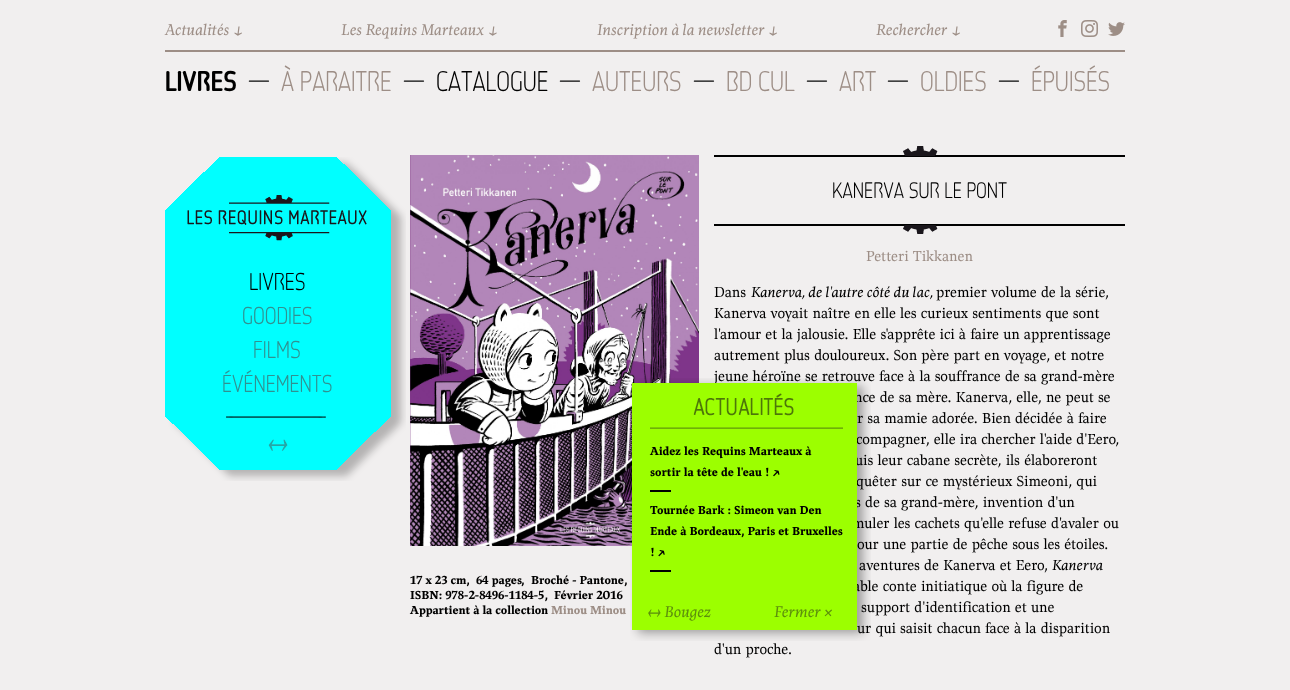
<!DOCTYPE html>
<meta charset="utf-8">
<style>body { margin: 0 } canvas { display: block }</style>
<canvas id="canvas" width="1290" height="690"></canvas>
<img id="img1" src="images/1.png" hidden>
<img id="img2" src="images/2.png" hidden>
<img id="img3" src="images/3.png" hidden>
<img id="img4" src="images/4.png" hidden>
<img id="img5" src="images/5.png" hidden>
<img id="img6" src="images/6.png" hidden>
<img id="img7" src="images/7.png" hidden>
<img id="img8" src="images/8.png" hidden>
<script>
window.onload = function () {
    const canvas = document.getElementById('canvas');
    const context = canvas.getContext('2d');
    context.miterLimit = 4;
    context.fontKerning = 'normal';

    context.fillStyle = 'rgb(241, 239, 239)';
    context.fillRect(0, 0, 1290, 690);
    context.drawImage(document.getElementById('img1'), 1058, 20, 9, 17);
    context.drawImage(document.getElementById('img2'), 1081, 20, 17, 17);
    context.drawImage(document.getElementById('img3'), 1108, 22, 17, 14);
    context.fillStyle = 'rgb(157, 142, 134)';
    context.fillRect(165, 50, 960, 2);
    context.drawImage(document.getElementById('img4'), 165, 157, 241, 324);
    context.fillStyle = 'rgb(0, 0, 0)';
    context.fillRect(714, 155, 411, 2);
    context.fillRect(714, 224, 411, 2);
    context.drawImage(document.getElementById('img5'), 903, 146, 35, 10);
    context.drawImage(document.getElementById('img6'), 903, 225, 35, 9);
    context.drawImage(document.getElementById('img7'), 410, 155, 289, 391);
    context.font = 'italic 16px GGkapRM';
    context.fillStyle = 'rgb(157, 142, 134)';
    context.fillText('Actualités ↓', 165, 35);
    context.fillText('Les Requins Marteaux ↓', 341, 35);
    context.fillText('Inscription à la newsletter ↓', 597, 35);
    context.fillText('Rechercher ↓', 876, 35);
    context.font = '28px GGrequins';
    context.fillStyle = 'rgb(0, 0, 0)';
    context.fillText('LIVRES', 165, 91);
    context.font = '100 28px GGrequins';
    context.fillText('—', 248, 91);
    context.fillStyle = 'rgb(157, 142, 134)';
    context.fillText('À PARAITRE', 281, 91);
    context.fillStyle = 'rgb(0, 0, 0)';
    context.fillText('—', 403, 91);
    context.fillText('CATALOGUE', 436, 91);
    context.fillText('—', 559, 91);
    context.fillStyle = 'rgb(157, 142, 134)';
    context.fillText('AUTEURS', 592, 91);
    context.fillStyle = 'rgb(0, 0, 0)';
    context.fillText('—', 693, 91);
    context.fillStyle = 'rgb(157, 142, 134)';
    context.fillText('BD CUL', 726, 91);
    context.fillStyle = 'rgb(0, 0, 0)';
    context.fillText('—', 806, 91);
    context.fillStyle = 'rgb(157, 142, 134)';
    context.fillText('ART', 839, 91);
    context.fillStyle = 'rgb(0, 0, 0)';
    context.fillText('—', 887, 91);
    context.fillStyle = 'rgb(157, 142, 134)';
    context.fillText('OLDIES', 920, 91);
    context.fillStyle = 'rgb(0, 0, 0)';
    context.fillText('—', 998, 91);
    context.fillStyle = 'rgb(157, 142, 134)';
    context.fillText('ÉPUISÉS', 1031, 91);
    context.font = '100 24px GGrequins';
    context.fillStyle = 'rgb(0, 0, 0)';
    context.fillText('LIVRES', 249, 290);
    context.fillStyle = 'rgb(48, 145, 145)';
    context.fillText('GOODIES', 242, 324);
    context.fillText('FILMS', 253, 358);
    context.fillText('ÉVÉNEMENTS', 222, 392);
    context.font = '100 22px GGrequins';
    context.fillStyle = 'rgb(0, 0, 0)';
    context.fillText('KANERVA SUR LE PONT', 832, 198);
    context.font = '15px "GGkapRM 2"';
    context.fillStyle = 'rgb(157, 142, 134)';
    context.fillText('Petteri Tikkanen', 866, 261);
    context.font = '12px GGkapRM';
    context.fillStyle = 'rgb(0, 0, 0)';
    context.fillText('17 x 23 cm,', 410, 584);
    context.fillText('64 pages', 476, 584);
    context.fillText(',', 521, 584);
    context.fillText('Broché - Pantone', 531, 584);
    context.fillText(',', 624, 584);
    context.fillText('ISBN: 978-2-8496-1184-5,', 410, 599);
    context.fillText('Février 2016', 554, 599);
    context.fillText('Appartient à la collection', 410, 614);
    context.fillStyle = 'rgb(157, 142, 134)';
    context.fillText('Minou Minou', 551, 614);
    context.font = '15px "GGkapRM 2"';
    context.fillStyle = 'rgb(0, 0, 0)';
    context.fillText('Dans', 714, 297);
    context.font = 'italic 15px GGkapRM';
    context.fillText('Kanerva, de l\'autre côté du lac,', 751, 297);
    context.font = '15px "GGkapRM 2"';
    context.fillText('premier volume de la série,', 936, 297);
    context.fillText('Kanerva voyait naître en elle les curieux sentiments que sont', 714, 318);
    context.fillText('l\'amour et la jalousie. Elle s\'apprête ici à faire un apprentissage', 714, 339);
    context.fillText('autrement plus douloureux. Son père part en voyage, et notre', 714, 360);
    context.fillText('jeune héroïne se retrouve face à la souffrance de sa grand-mère', 714, 381);
    context.fillText('nce de sa mère. Kanerva, elle, ne peut se', 854, 402);
    context.fillText('r sa mamie adorée. Bien décidée à faire', 857, 423);
    context.fillText('compagner, elle ira chercher l\'aide d\'Eero,', 856, 444);
    context.fillText('uis leur cabane secrète, ils élaboreront', 855, 465);
    context.fillText('quêter sur ce mystérieux Simeoni, qui', 856, 486);
    context.fillText('s de sa grand-mère, invention d\'un', 855, 507);
    context.fillText('muler les cachets qu\'elle refuse d\'avaler ou', 852, 528);
    context.fillText('our une partie de pêche sous les étoiles.', 857, 549);
    context.fillText('aventures de Kanerva et Eero,', 859, 570);
    context.font = 'italic 15px GGkapRM';
    context.fillText('Kanerva', 1052, 570);
    context.font = '15px "GGkapRM 2"';
    context.fillText('able conte initiatique où la figure de', 853, 591);
    context.fillText('support d\'identification et une', 861, 612);
    context.fillText('ur qui saisit chacun face à la disparition', 857, 633);
    context.fillText('d\'un proche.', 714, 654);
    context.drawImage(document.getElementById('img8'), 630, 378, 241, 263);
    context.font = '12px GGkapRM';
    context.fillText('Aidez les Requins Marteaux à', 650, 455);
    context.fillText('sortir la tête de l\'eau ! ↗', 650, 476);
    context.fillRect(650, 490, 21, 2);
    context.fillText('Tournée Bark : Simeon van Den', 650, 514);
    context.fillText('Ende à Bordeaux, Paris et Bruxelles', 650, 535);
    context.fillText('! ↗', 650, 556);
    context.fillRect(650, 570, 21, 2);
    context.font = 'italic 16px GGkapRM';
    context.fillStyle = 'rgb(93, 144, 12)';
    context.fillText('↔ Bougez', 647, 617);
    context.fillText('Fermer ×', 774, 617);
};
</script>
